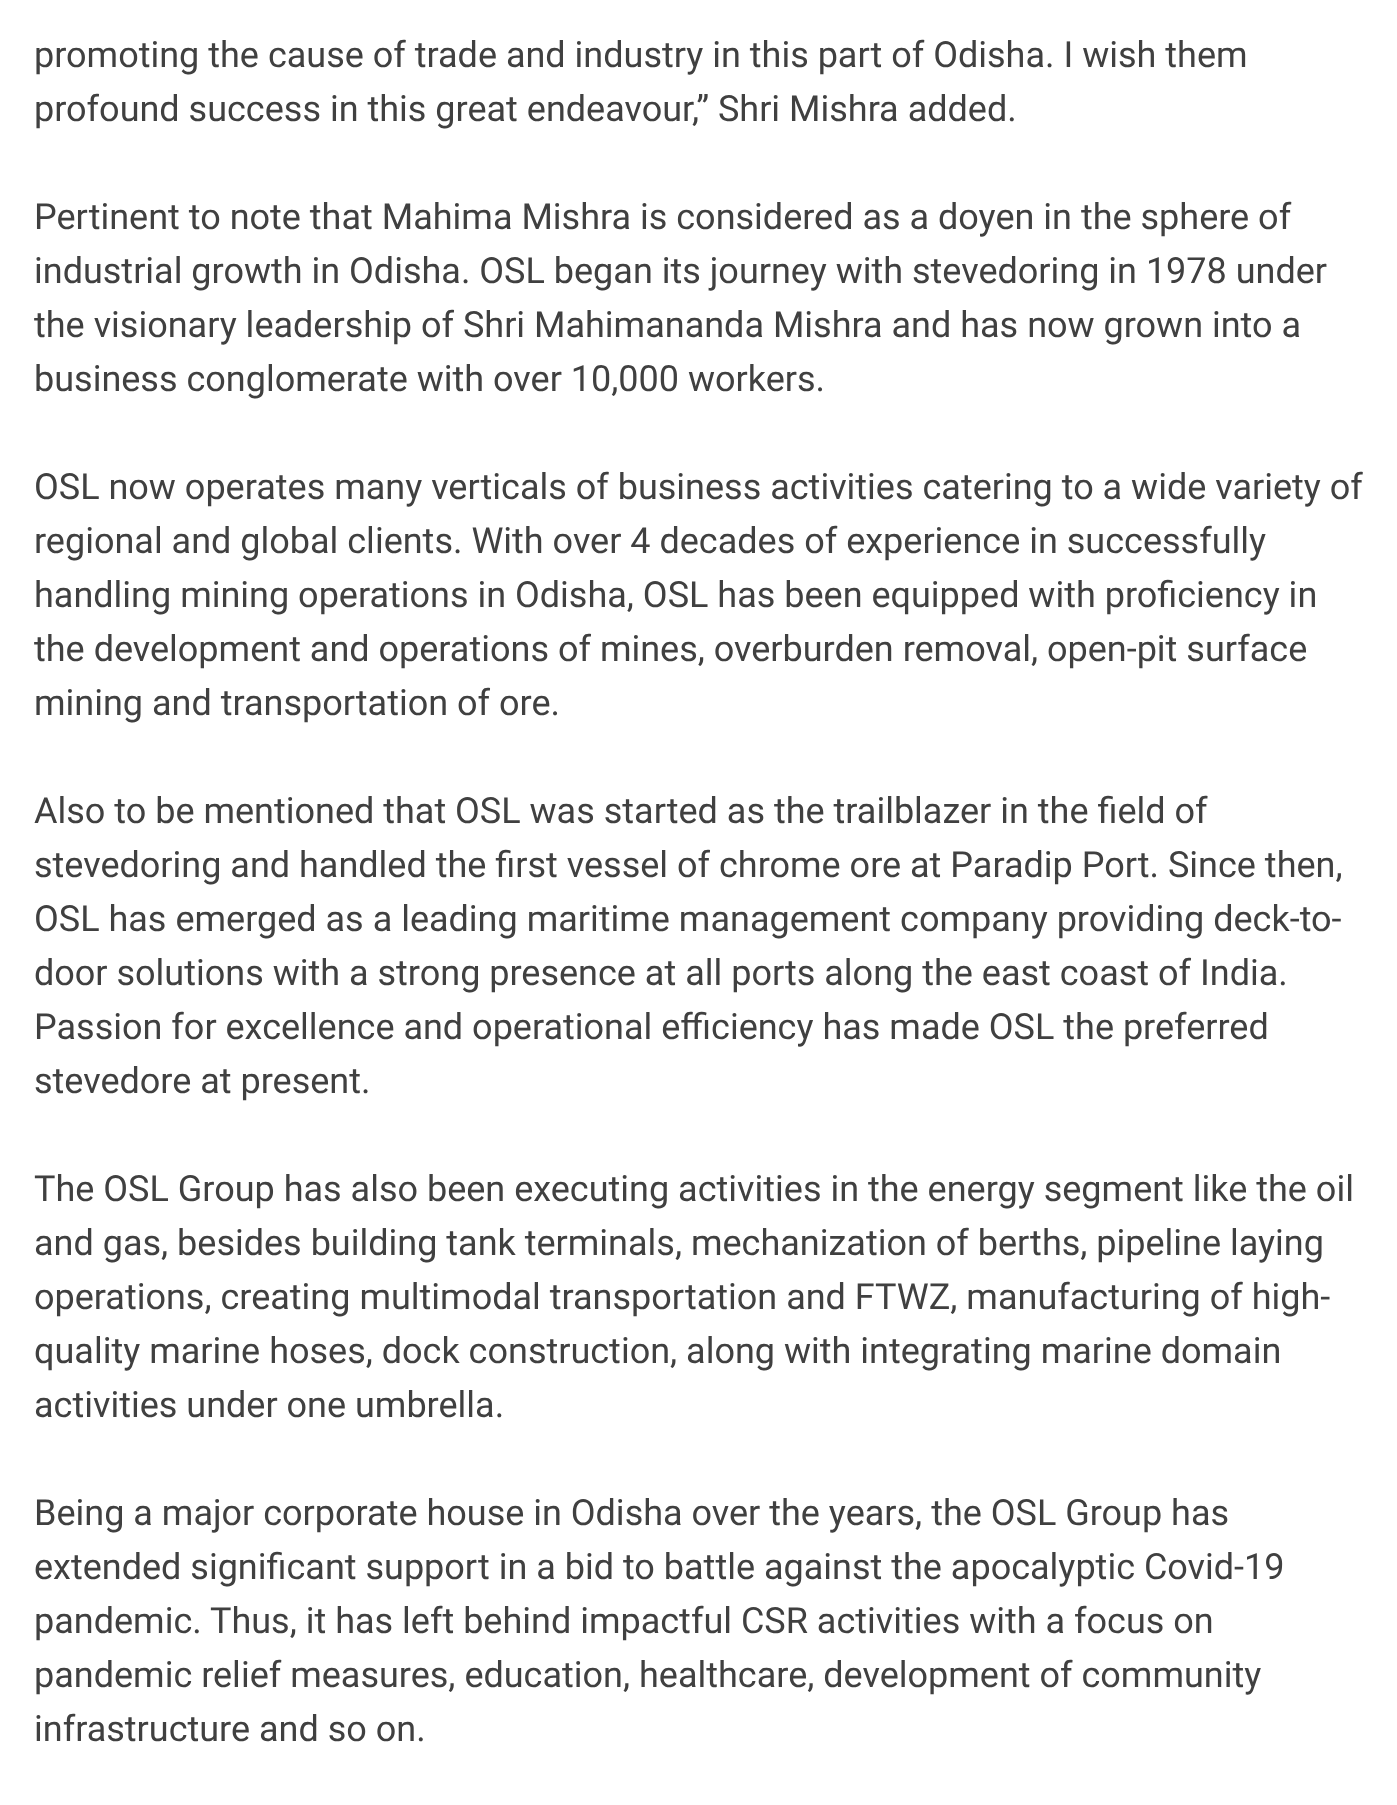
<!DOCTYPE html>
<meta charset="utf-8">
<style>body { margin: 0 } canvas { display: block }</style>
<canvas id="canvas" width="1397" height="1805"></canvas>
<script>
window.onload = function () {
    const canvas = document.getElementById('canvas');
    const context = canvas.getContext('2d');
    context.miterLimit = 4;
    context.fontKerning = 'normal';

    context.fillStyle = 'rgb(255, 255, 255)';
    context.fillRect(0, 0, 1397, 1805);
    context.font = '36px Roboto';
    context.fillStyle = 'rgb(64, 64, 64)';
    context.fillText('promoting the cause of trade and industry in this part of Odisha. I wish them', 34, 67);
    context.fillText('profound success in this great endeavour,” Shri Mishra added.', 34, 121);
    context.fillText('Pertinent to note that Mahima Mishra is considered as a doyen in the sphere of', 34, 229);
    context.fillText('industrial growth in Odisha. OSL began its journey with stevedoring in 1978 under', 34, 283);
    context.fillText('the visionary leadership of Shri Mahimananda Mishra and has now grown into a', 34, 337);
    context.fillText('business conglomerate with over 10,000 workers.', 34, 391);
    context.fillText('OSL now operates many verticals of business activities catering to a wide variety of', 34, 499);
    context.fillText('regional and global clients. With over 4 decades of experience in successfully', 34, 553);
    context.fillText('handling mining operations in Odisha, OSL has been equipped with proficiency in', 34, 607);
    context.fillText('the development and operations of mines, overburden removal, open-pit surface', 34, 661);
    context.fillText('mining and transportation of ore.', 34, 715);
    context.fillText('Also to be mentioned that OSL was started as the trailblazer in the field of', 34, 823);
    context.fillText('stevedoring and handled the first vessel of chrome ore at Paradip Port. Since then,', 34, 877);
    context.fillText('OSL has emerged as a leading maritime management company providing deck-to-', 34, 931);
    context.fillText('door solutions with a strong presence at all ports along the east coast of India.', 34, 985);
    context.fillText('Passion for excellence and operational efficiency has made OSL the preferred', 34, 1039);
    context.fillText('stevedore at present.', 34, 1093);
    context.fillText('The OSL Group has also been executing activities in the energy segment like the oil', 34, 1201);
    context.fillText('and gas, besides building tank terminals, mechanization of berths, pipeline laying', 34, 1255);
    context.fillText('operations, creating multimodal transportation and FTWZ, manufacturing of high-', 34, 1309);
    context.fillText('quality marine hoses, dock construction, along with integrating marine domain', 34, 1363);
    context.fillText('activities under one umbrella.', 34, 1417);
    context.fillText('Being a major corporate house in Odisha over the years, the OSL Group has', 34, 1525);
    context.fillText('extended significant support in a bid to battle against the apocalyptic Covid-19', 34, 1579);
    context.fillText('pandemic. Thus, it has left behind impactful CSR activities with a focus on', 34, 1633);
    context.fillText('pandemic relief measures, education, healthcare, development of community', 34, 1687);
    context.fillText('infrastructure and so on.', 34, 1741);
};
</script>
